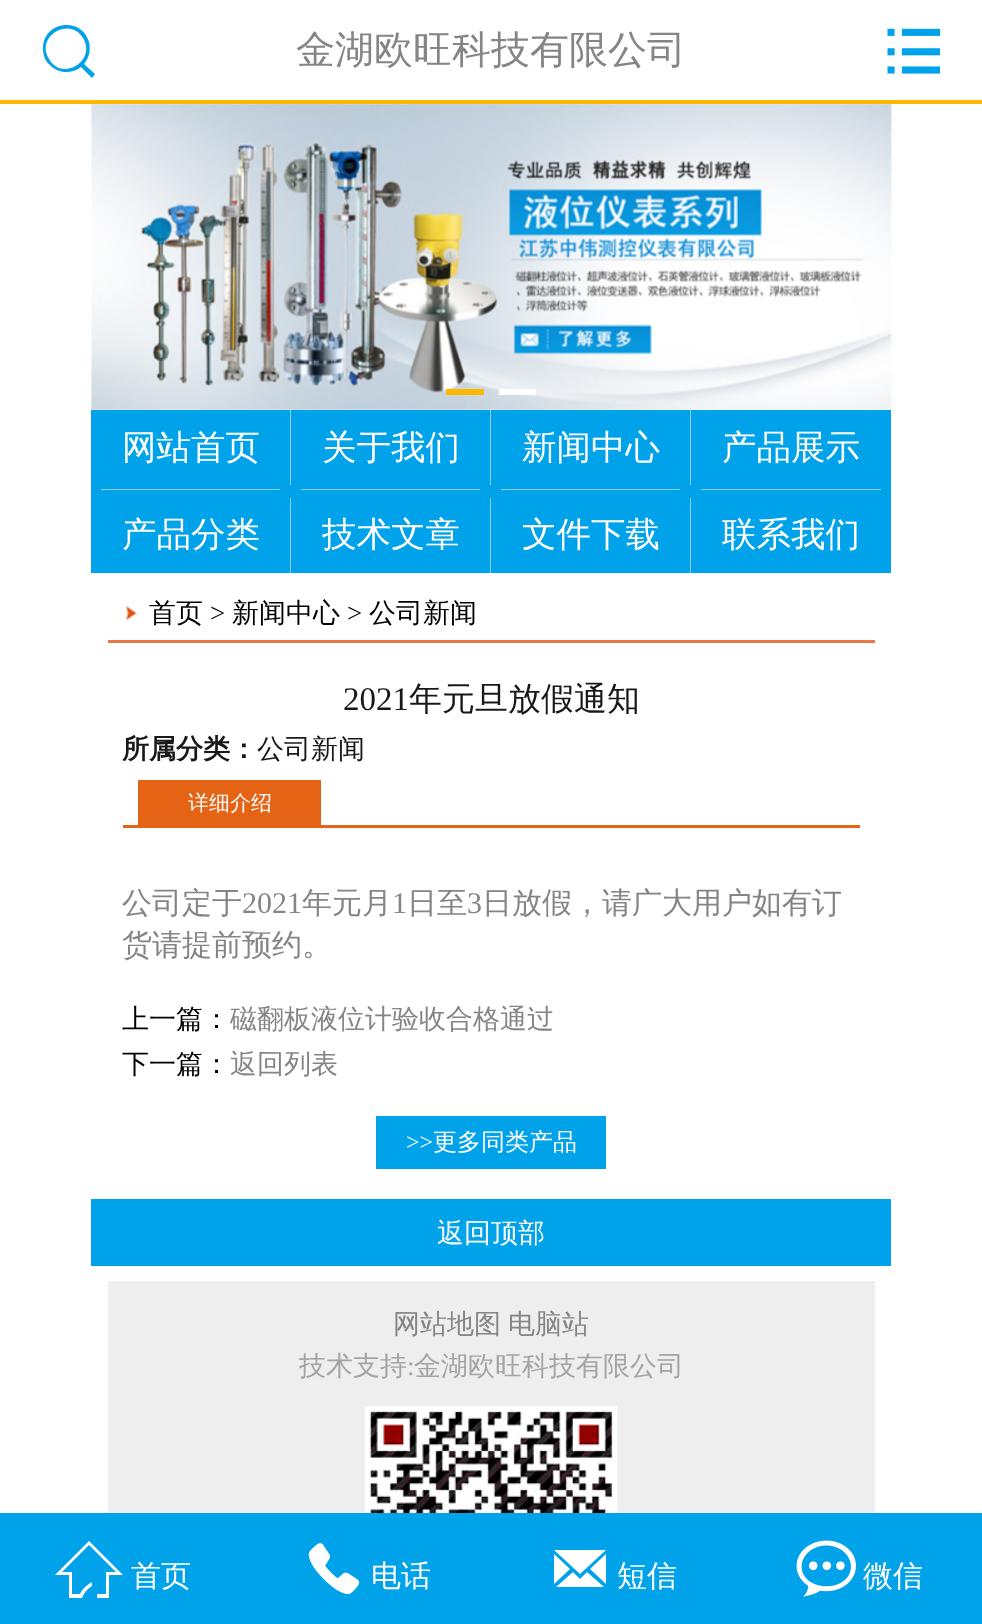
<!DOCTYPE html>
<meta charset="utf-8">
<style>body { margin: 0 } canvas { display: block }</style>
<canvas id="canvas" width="982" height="1624"></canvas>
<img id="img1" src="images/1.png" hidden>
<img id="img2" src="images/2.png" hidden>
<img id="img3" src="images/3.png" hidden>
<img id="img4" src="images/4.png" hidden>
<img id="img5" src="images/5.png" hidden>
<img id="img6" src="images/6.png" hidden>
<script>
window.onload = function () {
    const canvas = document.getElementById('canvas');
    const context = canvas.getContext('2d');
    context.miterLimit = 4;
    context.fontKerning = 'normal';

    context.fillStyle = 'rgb(255, 255, 255)';
    context.fillRect(0, 0, 982, 1624);
    context.fillStyle = 'rgb(255, 184, 0)';
    context.fillRect(0, 100, 982, 4);
    context.fillStyle = 'rgb(0, 162, 233)';
    context.beginPath();
    context.moveTo(49, 59);
    context.bezierCurveTo(35, 36, 70, 16, 83, 38);
    context.bezierCurveTo(97, 61, 62, 82, 49, 59);
    context.closePath();
    context.moveTo(81, 67);
    context.lineTo(92, 78);
    context.lineTo(95, 74);
    context.lineTo(84, 64);
    context.bezierCurveTo(89, 58, 91, 50, 89, 42);
    context.bezierCurveTo(82, 16, 43, 21, 43, 48);
    context.bezierCurveTo(43, 55, 45, 61, 50, 65);
    context.bezierCurveTo(58, 74, 72, 74, 81, 67);
    context.closePath();
    context.fill();
    context.drawImage(document.getElementById('img1'), 887, 28, 53, 46);
    context.drawImage(document.getElementById('img2'), 91, 104, 801, 306);
    context.fillStyle = 'rgb(255, 184, 0)';
    context.fillRect(446, 389, 38, 6);
    context.fillStyle = 'rgb(255, 255, 255)';
    context.fillRect(499, 389, 37, 6);
    context.fillStyle = 'rgb(0, 162, 233)';
    context.fillRect(91, 410, 800, 163);
    context.fillStyle = 'rgb(145, 205, 227)';
    context.fillRect(290, 410, 1, 75);
    context.fillRect(101, 489, 179, 1);
    context.fillRect(490, 410, 1, 75);
    context.fillRect(301, 489, 179, 1);
    context.fillRect(690, 410, 1, 75);
    context.fillRect(501, 489, 179, 1);
    context.fillRect(701, 489, 180, 1);
    context.fillRect(290, 498, 1, 75);
    context.fillRect(490, 498, 1, 75);
    context.fillRect(690, 498, 1, 75);
    context.drawImage(document.getElementById('img3'), 126, 606, 11, 15);
    context.fillStyle = 'rgb(232, 119, 69)';
    context.fillRect(108, 640, 767, 3);
    context.fillStyle = 'rgb(228, 99, 21)';
    context.fillRect(123, 825, 737, 3);
    context.fillRect(138, 780, 183, 45);
    context.fillStyle = 'rgb(0, 162, 233)';
    context.fillRect(376, 1116, 230, 53);
    context.fillRect(91, 1199, 800, 67);
    context.fillStyle = 'rgb(238, 238, 238)';
    context.fillRect(108, 1281, 767, 232);
    context.drawImage(document.getElementById('img4'), 365, 1406, 253, 107);
    context.fillStyle = 'rgb(0, 162, 233)';
    context.fillRect(0, 1513, 982, 111);
    context.fillStyle = 'rgb(255, 255, 255)';
    context.beginPath();
    context.moveTo(89, 1541);
    context.lineTo(55, 1575);
    context.lineTo(69, 1575);
    context.lineTo(69, 1598);
    context.lineTo(82, 1598);
    context.bezierCurveTo(84, 1593, 87, 1589, 92, 1586);
    context.lineTo(92, 1582);
    context.bezierCurveTo(87, 1585, 82, 1589, 80, 1594);
    context.lineTo(72, 1594);
    context.lineTo(72, 1572);
    context.lineTo(62, 1572);
    context.lineTo(89, 1545);
    context.lineTo(116, 1572);
    context.lineTo(106, 1572);
    context.lineTo(106, 1594);
    context.lineTo(97, 1594);
    context.lineTo(97, 1598);
    context.lineTo(109, 1598);
    context.lineTo(109, 1575);
    context.lineTo(123, 1575);
    context.closePath();
    context.fill();
    context.drawImage(document.getElementById('img5'), 308, 1543, 52, 52);
    context.beginPath();
    context.moveTo(606, 1550);
    context.lineTo(554, 1550);
    context.closePath();
    context.moveTo(580, 1579);
    context.lineTo(573, 1572);
    context.lineTo(556, 1587);
    context.lineTo(604, 1587);
    context.lineTo(587, 1572);
    context.closePath();
    context.moveTo(554, 1554);
    context.lineTo(554, 1584);
    context.lineTo(570, 1569);
    context.closePath();
    context.moveTo(606, 1584);
    context.lineTo(606, 1554);
    context.lineTo(590, 1569);
    context.closePath();
    context.moveTo(580, 1574);
    context.lineTo(606, 1550);
    context.lineTo(554, 1550);
    context.closePath();
    context.moveTo(580, 1574);
    context.lineTo(580, 1574);
    context.closePath();
    context.fill();
    context.drawImage(document.getElementById('img6'), 796, 1540, 60, 57);
    context.font = '500 39px WenQuanYi Zen Hei';
    context.fillStyle = 'rgb(133, 133, 133)';
    context.fillText('金湖欧旺科技有限公司', 296, 63);
    context.font = '500 34.5px WenQuanYi Zen Hei';
    context.fillStyle = 'rgb(255, 255, 255)';
    context.fillText('网站首页', 122, 459);
    context.fillText('关于我们', 322, 459);
    context.fillText('新闻中心', 522, 459);
    context.fillText('产品展示', 722, 459);
    context.fillText('产品分类', 122, 546);
    context.fillText('技术文章', 322, 546);
    context.fillText('文件下载', 522, 546);
    context.fillText('联系我们', 722, 546);
    context.font = '500 27px WenQuanYi Zen Hei';
    context.fillStyle = 'rgb(0, 0, 0)';
    context.fillText('首页', 149, 622);
    context.font = '27px Liberation Serif';
    context.fillText('>', 210, 622);
    context.font = '500 27px WenQuanYi Zen Hei';
    context.fillText('新闻中心', 232, 622);
    context.font = '27px Liberation Serif';
    context.fillText('>', 347, 622);
    context.font = '500 27px WenQuanYi Zen Hei';
    context.fillText('公司新闻', 369, 622);
    context.font = '33px Liberation Serif';
    context.fillStyle = 'rgb(24, 24, 24)';
    context.fillText('2021', 343, 710);
    context.font = '500 33px WenQuanYi Zen Hei';
    context.fillText('年元旦放假通知', 409, 710);
    context.font = 'bold 27px WenQuanYi Zen Hei';
    context.fillText('所属分类：', 122, 758);
    context.font = '500 27px WenQuanYi Zen Hei';
    context.fillText('公司新闻', 257, 758);
    context.font = '500 21px WenQuanYi Zen Hei';
    context.fillStyle = 'rgb(255, 255, 255)';
    context.fillText('详细介绍', 188, 810);
    context.font = '500 30px WenQuanYi Zen Hei';
    context.fillStyle = 'rgb(133, 133, 133)';
    context.fillText('公司定于', 122, 913);
    context.font = '30px Liberation Serif';
    context.fillText('2021', 242, 913);
    context.font = '500 30px WenQuanYi Zen Hei';
    context.fillText('年元月', 302, 913);
    context.font = '30px Liberation Serif';
    context.fillText('1', 392, 913);
    context.font = '500 30px WenQuanYi Zen Hei';
    context.fillText('日至', 407, 913);
    context.font = '30px Liberation Serif';
    context.fillText('3', 467, 913);
    context.font = '500 30px WenQuanYi Zen Hei';
    context.fillText('日放假，请广大用户如有订', 482, 913);
    context.fillText('货请提前预约。', 122, 955);
    context.font = '500 27px WenQuanYi Zen Hei';
    context.fillStyle = 'rgb(0, 0, 0)';
    context.fillText('上一篇：', 122, 1028);
    context.fillStyle = 'rgb(133, 133, 133)';
    context.fillText('磁翻板液位计验收合格通过', 230, 1028);
    context.fillStyle = 'rgb(0, 0, 0)';
    context.fillText('下一篇：', 122, 1073);
    context.fillStyle = 'rgb(133, 133, 133)';
    context.fillText('返回列表', 230, 1073);
    context.font = '24px Liberation Serif';
    context.fillStyle = 'rgb(255, 255, 255)';
    context.fillText('>>', 406, 1150);
    context.font = '500 24px WenQuanYi Zen Hei';
    context.fillText('更多同类产品', 433, 1150);
    context.font = '500 27px WenQuanYi Zen Hei';
    context.fillText('返回顶部', 437, 1242);
    context.fillStyle = 'rgb(133, 133, 133)';
    context.fillText('网站地图', 393, 1333);
    context.fillText('电脑站', 508, 1333);
    context.fillStyle = 'rgb(164, 164, 164)';
    context.fillText('技术支持', 299, 1375);
    context.font = '27px Liberation Serif';
    context.fillText(':', 407, 1375);
    context.font = '500 27px WenQuanYi Zen Hei';
    context.fillText('金湖欧旺科技有限公司', 414, 1375);
    context.font = '500 30px WenQuanYi Zen Hei';
    context.fillStyle = 'rgb(255, 255, 255)';
    context.fillText('首页', 131, 1586);
    context.fillText('电话', 371, 1586);
    context.fillText('短信', 617, 1586);
    context.fillText('微信', 863, 1586);
};
</script>
